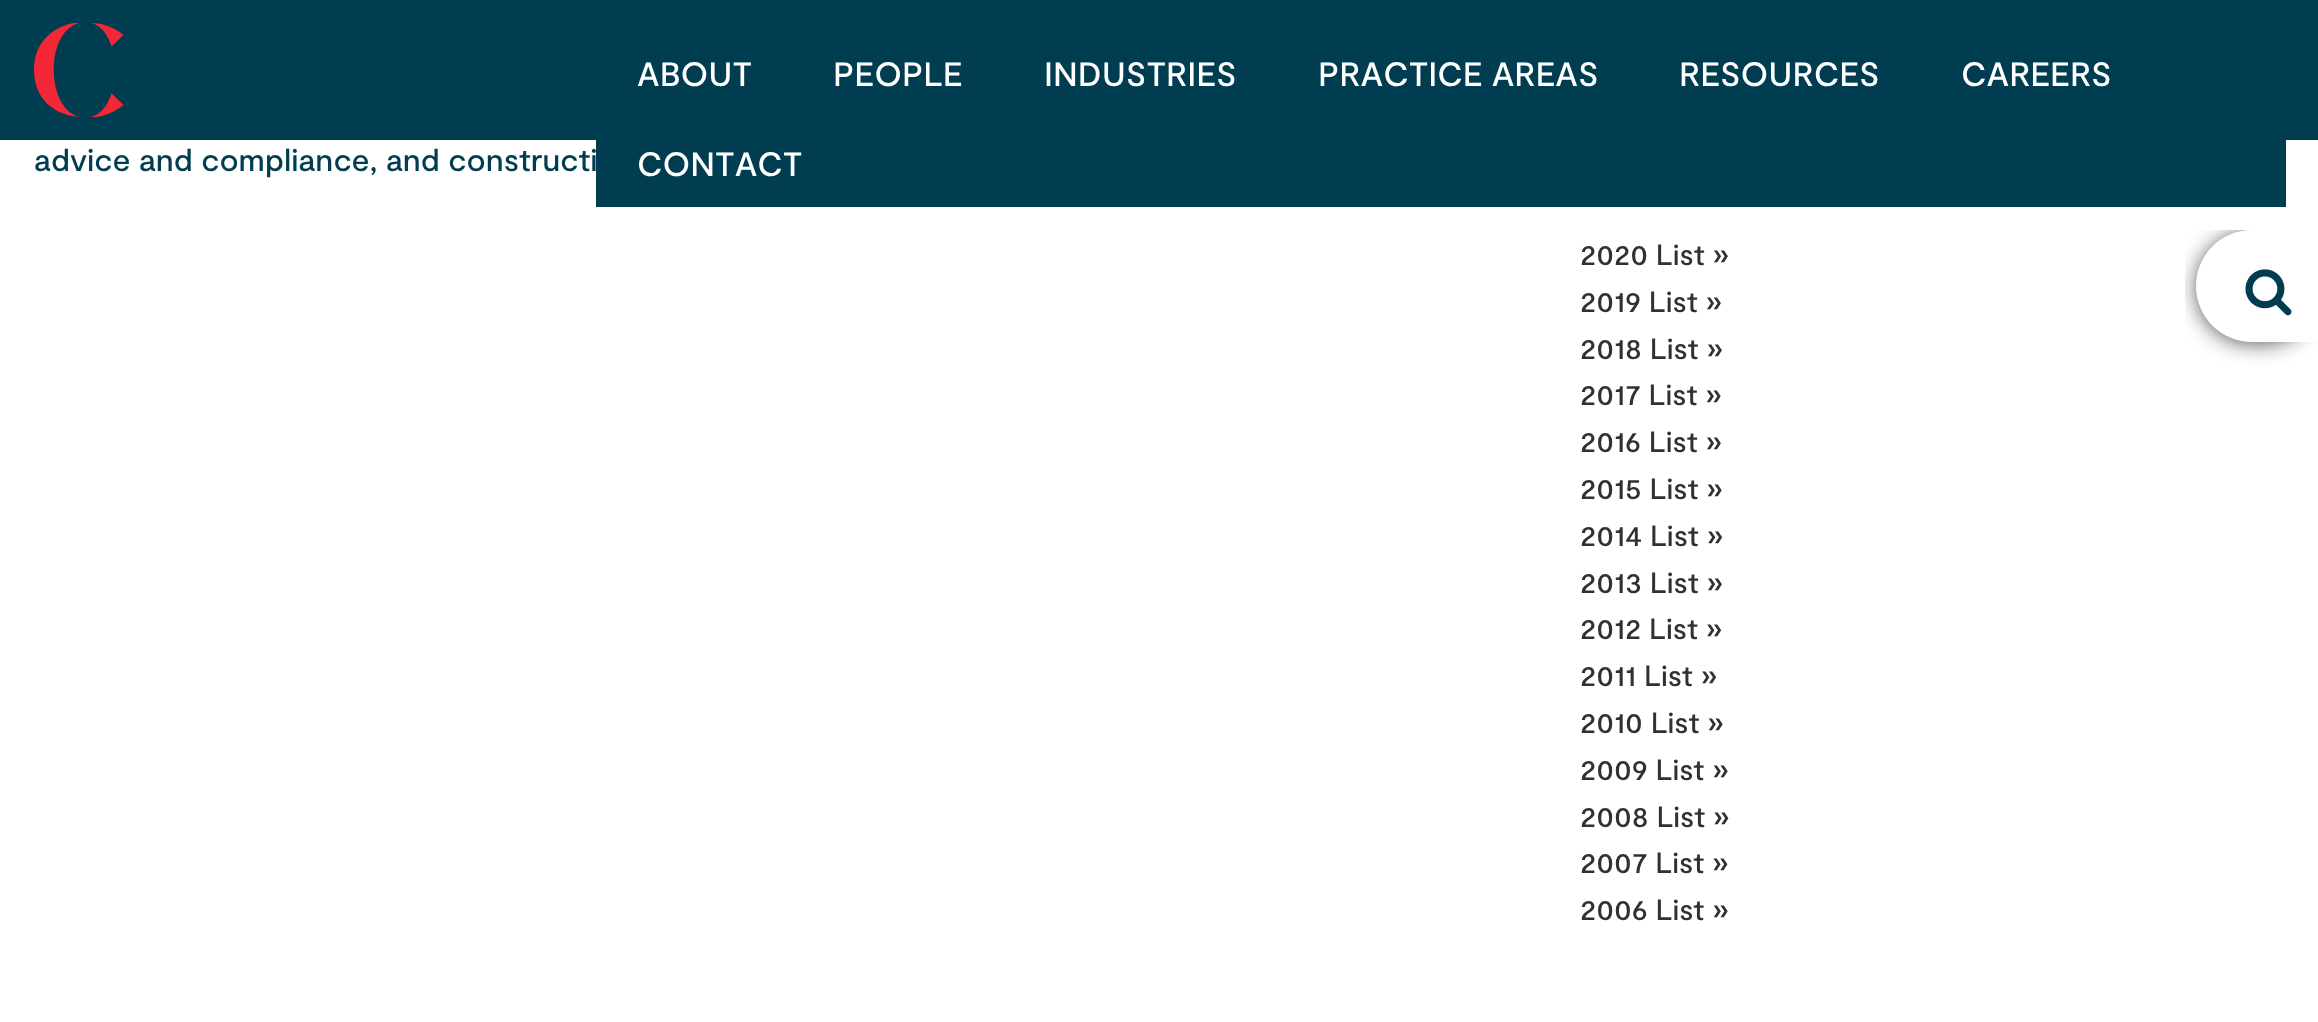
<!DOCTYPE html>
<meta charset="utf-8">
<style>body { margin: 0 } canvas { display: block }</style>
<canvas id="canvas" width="2318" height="1022"></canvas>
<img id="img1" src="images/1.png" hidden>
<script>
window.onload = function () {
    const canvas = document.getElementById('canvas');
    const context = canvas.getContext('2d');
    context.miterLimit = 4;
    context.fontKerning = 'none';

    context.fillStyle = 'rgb(255, 255, 255)';
    context.fillRect(0, 0, 2318, 1022);
    context.fillStyle = 'rgb(0, 61, 80)';
    context.fillRect(0, 0, 2318, 140);
    context.fillStyle = 'rgb(243, 39, 53)';
    context.beginPath();
    context.moveTo(91, 23);
    context.bezierCurveTo(103, 23, 114.5, 27.5, 123.5, 35);
    context.lineTo(111.5, 46.5);
    context.bezierCurveTo(107.5, 33.5, 100.5, 25, 91, 23);
    context.closePath();
    context.fill();
    context.save();
    context.beginPath();
    context.rect(34, 23, 90, 94);
    context.clip();
    context.beginPath();
    context.moveTo(111.5, 93.5);
    context.bezierCurveTo(107.5, 106, 100.5, 114.5, 91, 117);
    context.lineTo(91, 117.5);
    context.bezierCurveTo(103, 117, 114.5, 112.5, 123.5, 105);
    context.closePath();
    context.fill();
    context.beginPath();
    context.moveTo(34, 70);
    context.bezierCurveTo(34, 97, 52, 115, 80, 117);
    context.bezierCurveTo(45, 109, 45, 30, 80, 23);
    context.lineTo(80, 22);
    context.bezierCurveTo(52, 25, 34, 43, 34, 70);
    context.closePath();
    context.fill();
    context.restore();
    context.fillStyle = 'rgb(0, 61, 80)';
    context.fillRect(596, 140, 1690, 67);
    context.save();
    context.beginPath();
    context.rect(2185, 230, 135, 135);
    context.clip();
    context.fillStyle = 'rgba(0, 0, 0, 0.75)';
    context.filter = 'blur(11px)';
    context.beginPath();
    context.roundRect(2198, 234, 120, 108, 54);
    context.fill();
    context.filter = 'none';
    context.restore();
    context.fillStyle = 'rgb(255, 255, 255)';
    context.beginPath();
    context.moveTo(2252, 230);
    context.lineTo(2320, 230);
    context.lineTo(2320, 342);
    context.lineTo(2252, 342);
    context.bezierCurveTo(2221, 342, 2196, 317, 2196, 286);
    context.bezierCurveTo(2196, 255, 2221, 230, 2252, 230);
    context.closePath();
    context.fill();
    context.drawImage(document.getElementById('img1'), 2245, 269, 47, 47);
    context.font = '500 33.75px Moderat';
    context.fillText('ABOUT', 637, 86);
    context.fillText('PEOPLE', 833, 86);
    context.fillText('INDUSTRIES', 1044, 86);
    context.fillText('PRACTICE AREAS', 1318, 86);
    context.fillText('RESOURCES', 1679, 86);
    context.fillText('CAREERS', 1961, 86);
    context.fillText('CONTACT', 637, 176);
    context.font = '500 31.5px Moderat';
    context.fillStyle = 'rgb(0, 61, 80)';
    context.fillText('advice and compliance, and constructi', 34, 171);
    context.font = '500 29.25px Moderat';
    context.fillStyle = 'rgb(49, 49, 48)';
    context.fillText('2020 List »', 1580, 265);
    context.fillText('2019 List »', 1580, 312);
    context.fillText('2018 List »', 1580, 359);
    context.fillText('2017 List »', 1580, 405);
    context.fillText('2016 List »', 1580, 452);
    context.fillText('2015 List »', 1580, 499);
    context.fillText('2014 List »', 1580, 546);
    context.fillText('2013 List »', 1580, 593);
    context.fillText('2012 List »', 1580, 639);
    context.fillText('2011 List »', 1580, 686);
    context.fillText('2010 List »', 1580, 733);
    context.fillText('2009 List »', 1580, 780);
    context.fillText('2008 List »', 1580, 827);
    context.fillText('2007 List »', 1580, 873);
    context.fillText('2006 List »', 1580, 920);
};
</script>
